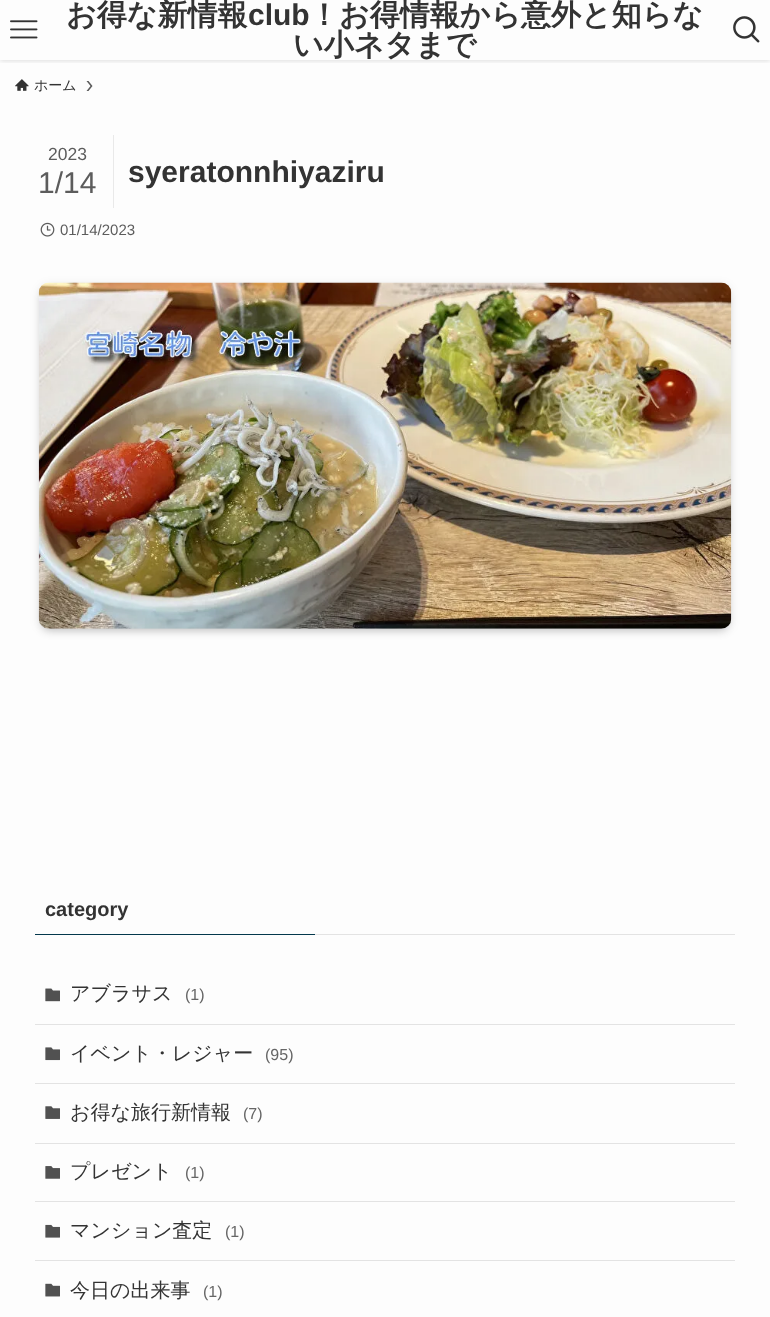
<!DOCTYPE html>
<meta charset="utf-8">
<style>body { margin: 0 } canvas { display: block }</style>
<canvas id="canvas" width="770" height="1317"></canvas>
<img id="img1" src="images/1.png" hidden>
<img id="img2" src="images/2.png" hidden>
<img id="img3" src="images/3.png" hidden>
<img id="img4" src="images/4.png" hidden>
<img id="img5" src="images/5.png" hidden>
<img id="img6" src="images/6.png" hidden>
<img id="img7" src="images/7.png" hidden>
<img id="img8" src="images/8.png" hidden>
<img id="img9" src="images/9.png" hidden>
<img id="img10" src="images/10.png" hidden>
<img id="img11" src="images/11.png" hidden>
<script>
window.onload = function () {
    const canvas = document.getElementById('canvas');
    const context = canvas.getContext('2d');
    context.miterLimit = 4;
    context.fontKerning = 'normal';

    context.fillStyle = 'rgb(253, 253, 253)';
    context.fillRect(0, 0, 770, 1317);
    context.save();
    context.beginPath();
    context.rect(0, 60, 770, 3);
    context.clip();
    context.fillStyle = 'rgba(0, 0, 0, 0.12)';
    context.filter = 'blur(2.5px)';
    context.beginPath();
    context.rect(0, 1, 770, 60);
    context.fill();
    context.filter = 'none';
    context.restore();
    context.drawImage(document.getElementById('img1'), 10, 20, 28, 19);
    context.drawImage(document.getElementById('img2'), 733, 16, 27, 27);
    context.drawImage(document.getElementById('img3'), 15, 79, 14, 12);
    context.fillStyle = 'rgb(91, 91, 91)';
    context.beginPath();
    context.moveTo(88.5, 81);
    context.lineTo(86.5, 81);
    context.lineTo(90.5, 86);
    context.lineTo(86.5, 91);
    context.lineTo(88.5, 91);
    context.lineTo(92.5, 86);
    context.closePath();
    context.fill();
    context.fillStyle = 'rgb(233, 233, 233)';
    context.fillRect(113, 135, 1, 73);
    context.drawImage(document.getElementById('img4'), 40, 222, 15, 15);
    context.fillStyle = 'rgba(0, 0, 0, 0.2)';
    context.filter = 'blur(5px)';
    context.beginPath();
    context.roundRect(44, 293, 682, 336, 5);
    context.fill();
    context.filter = 'none';
    context.fillStyle = 'rgba(0, 0, 0, 0.1)';
    context.filter = 'blur(5px)';
    context.beginPath();
    context.roundRect(39, 285, 692, 346, 10);
    context.fill();
    context.filter = 'none';
    context.drawImage(document.getElementById('img5'), 38, 282, 694, 347);
    context.fillStyle = 'rgb(4, 56, 76)';
    context.fillRect(35, 934, 280, 1);
    context.fillStyle = 'rgb(227, 227, 227)';
    context.fillRect(315, 934, 420, 1);
    context.fillRect(35, 1024, 700, 1);
    context.drawImage(document.getElementById('img6'), 45, 988, 15, 14);
    context.fillRect(35, 1083, 700, 1);
    context.drawImage(document.getElementById('img7'), 45, 1047, 15, 14);
    context.fillRect(35, 1143, 700, 1);
    context.drawImage(document.getElementById('img8'), 45, 1106, 15, 13);
    context.fillRect(35, 1201, 700, 1);
    context.drawImage(document.getElementById('img9'), 45, 1166, 15, 13);
    context.fillRect(35, 1260, 700, 1);
    context.drawImage(document.getElementById('img10'), 45, 1224, 15, 14);
    context.drawImage(document.getElementById('img11'), 45, 1283, 15, 14);
    context.font = 'bold 30px WenQuanYi Zen Hei';
    context.fillStyle = 'rgb(51, 51, 51)';
    context.fillText('お得な新情報', 66, 25);
    context.font = 'bold 30px Liberation Sans';
    context.fillText('club', 248, 25);
    context.font = 'bold 30px WenQuanYi Zen Hei';
    context.fillText('！お得情報から意外と知らな', 309, 25);
    context.fillText('い小ネタまで', 293, 55);
    context.font = '500 14px WenQuanYi Zen Hei';
    context.fillText('ホーム', 34, 90);
    context.font = '17.5px Liberation Sans';
    context.fillStyle = 'rgb(92, 92, 92)';
    context.fillText('2023', 48, 160);
    context.font = '30px Liberation Sans';
    context.fillText('1/14', 38, 193);
    context.font = 'bold 30px Liberation Sans';
    context.fillStyle = 'rgb(51, 51, 51)';
    context.fillText('syeratonnhiyaziru', 128, 182);
    context.font = '15px Liberation Sans';
    context.fillStyle = 'rgb(92, 92, 92)';
    context.fillText('01/14/2023', 60, 235);
    context.font = 'bold 20px Liberation Sans';
    context.fillStyle = 'rgb(51, 51, 51)';
    context.fillText('category', 45, 916);
    context.font = '500 20px WenQuanYi Zen Hei';
    context.fillText('アブラサス', 70, 1000);
    context.font = '16px Liberation Sans';
    context.fillStyle = 'rgb(102, 102, 102)';
    context.fillText('(1)', 185, 1000);
    context.font = '500 20px WenQuanYi Zen Hei';
    context.fillStyle = 'rgb(51, 51, 51)';
    context.fillText('イベント・レジャー', 70, 1060);
    context.font = '16px Liberation Sans';
    context.fillStyle = 'rgb(102, 102, 102)';
    context.fillText('(95)', 265, 1060);
    context.font = '500 20px WenQuanYi Zen Hei';
    context.fillStyle = 'rgb(51, 51, 51)';
    context.fillText('お得な旅行新情報', 70, 1119);
    context.font = '16px Liberation Sans';
    context.fillStyle = 'rgb(102, 102, 102)';
    context.fillText('(7)', 243, 1119);
    context.font = '500 20px WenQuanYi Zen Hei';
    context.fillStyle = 'rgb(51, 51, 51)';
    context.fillText('プレゼント', 70, 1178);
    context.font = '16px Liberation Sans';
    context.fillStyle = 'rgb(102, 102, 102)';
    context.fillText('(1)', 185, 1178);
    context.font = '500 20px WenQuanYi Zen Hei';
    context.fillStyle = 'rgb(51, 51, 51)';
    context.fillText('マンション査定', 70, 1237);
    context.font = '16px Liberation Sans';
    context.fillStyle = 'rgb(102, 102, 102)';
    context.fillText('(1)', 225, 1237);
    context.font = '500 20px WenQuanYi Zen Hei';
    context.fillStyle = 'rgb(51, 51, 51)';
    context.fillText('今日の出来事', 70, 1297);
    context.font = '16px Liberation Sans';
    context.fillStyle = 'rgb(102, 102, 102)';
    context.fillText('(1)', 203, 1297);
};
</script>
